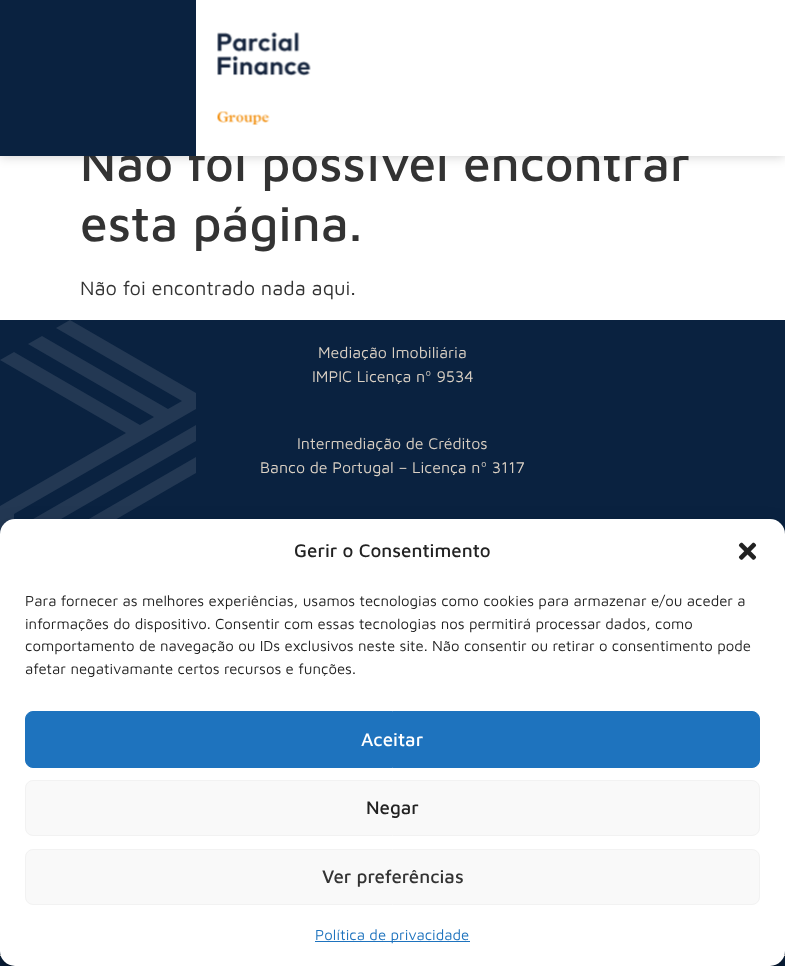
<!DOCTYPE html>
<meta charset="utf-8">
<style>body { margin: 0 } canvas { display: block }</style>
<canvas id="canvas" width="785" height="966"></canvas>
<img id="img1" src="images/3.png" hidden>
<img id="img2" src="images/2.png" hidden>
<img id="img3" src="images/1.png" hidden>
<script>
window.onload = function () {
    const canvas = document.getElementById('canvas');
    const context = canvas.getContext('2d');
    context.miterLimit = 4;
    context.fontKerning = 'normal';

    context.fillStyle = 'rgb(255, 255, 255)';
    context.fillRect(0, 0, 785, 966);
    context.fillStyle = 'rgba(0, 0, 0, 0.2)';
    context.filter = 'blur(6px)';
    context.beginPath();
    context.rect(0, 0, 785, 156);
    context.fill();
    context.filter = 'none';
    context.fillStyle = 'rgb(10, 34, 64)';
    context.fillRect(0, 320, 785, 646);
    context.fillStyle = 'rgb(35, 56, 83)';
    context.beginPath();
    context.moveTo(70, 320);
    context.lineTo(56, 328);
    context.lineTo(182, 401);
    context.lineTo(168, 409);
    context.lineTo(42, 336);
    context.lineTo(28, 344);
    context.lineTo(154, 417);
    context.lineTo(140, 425);
    context.lineTo(14, 352);
    context.lineTo(0, 360);
    context.lineTo(126, 433);
    context.lineTo(0, 506);
    context.lineTo(0, 587);
    context.lineTo(14, 595);
    context.lineTo(14, 514);
    context.lineTo(196, 409);
    context.lineTo(196, 393);
    context.closePath();
    context.moveTo(28, 522);
    context.lineTo(28, 603);
    context.lineTo(42, 611);
    context.lineTo(42, 530);
    context.lineTo(196, 441);
    context.lineTo(196, 425);
    context.closePath();
    context.moveTo(56, 538);
    context.lineTo(56, 619);
    context.lineTo(70, 627);
    context.lineTo(70, 546);
    context.lineTo(196, 473);
    context.lineTo(196, 457);
    context.closePath();
    context.fill('evenodd');
    context.fillStyle = 'rgb(219, 209, 196)';
    context.fillRect(0, 955, 785, 1);
    context.fillStyle = 'rgba(0, 0, 0, 0.23)';
    context.filter = 'blur(4px)';
    context.beginPath();
    context.roundRect(0, 526, 785, 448, 15);
    context.fill();
    context.filter = 'none';
    context.fillStyle = 'rgba(0, 0, 0, 0.19)';
    context.filter = 'blur(12.5px)';
    context.beginPath();
    context.roundRect(0, 531, 785, 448, 15);
    context.fill();
    context.filter = 'none';
    context.fillStyle = 'rgb(255, 255, 255)';
    context.beginPath();
    context.roundRect(0, 519, 785, 447, 15);
    context.fill();
    context.drawImage(document.getElementById('img1'), 738, 542, 19, 18);
    context.fillStyle = 'rgb(30, 115, 190)';
    context.beginPath();
    context.roundRect(25.5, 711.5, 734, 56, 7.5);
    context.fill();
    context.strokeStyle = 'rgb(30, 115, 190)';
    context.stroke();
    context.fillStyle = 'rgb(249, 249, 249)';
    context.beginPath();
    context.roundRect(25.5, 780.5, 734, 55, 7.5);
    context.fill();
    context.strokeStyle = 'rgb(242, 242, 242)';
    context.stroke();
    context.beginPath();
    context.roundRect(25.5, 849.5, 734, 55, 7.5);
    context.fill();
    context.stroke();
    context.fillStyle = 'rgb(30, 115, 190)';
    context.fillRect(315, 941, 155, 1);
    context.font = '500 50px Maven Pro';
    context.fillStyle = 'rgb(51, 51, 51)';
    context.fillText('Não foi possível encontrar', 80, 181);
    context.fillStyle = 'rgb(255, 255, 255)';
    context.fillRect(196, 0, 589, 156);
    context.drawImage(document.getElementById('img2'), 217, 111, 53, 14);
    context.drawImage(document.getElementById('img3'), 217, 32, 94, 44);
    context.fillStyle = 'rgb(10, 34, 64)';
    context.fillRect(0, 0, 196, 156);
    context.fillStyle = 'rgb(51, 51, 51)';
    context.fillText('esta página.', 80, 241);
    context.font = '20px Maven Pro';
    context.fillText('Não foi encontrado nada aqui.', 80, 295);
    context.font = '16px Maven Pro';
    context.fillStyle = 'rgb(219, 209, 196)';
    context.fillText('Mediação Imobiliária', 318, 358);
    context.fillText('IMPIC Licença nº 9534', 312, 382);
    context.fillText('Intermediação de Créditos', 297, 449);
    context.fillText('Banco de Portugal – Licença nº 3117', 260, 473);
    context.font = '500 18.75px Maven Pro';
    context.fillStyle = 'rgb(34, 34, 34)';
    context.fillText('Gerir o Consentimento', 294, 557);
    context.font = '15px Maven Pro';
    context.fillText('Para fornecer as melhores experiências, usamos tecnologias como cookies para armazenar e/ou aceder a', 25, 606);
    context.fillText('informações do dispositivo. Consentir com essas tecnologias nos permitirá processar dados, como', 25, 629);
    context.fillText('comportamento de navegação ou IDs exclusivos neste site. Não consentir ou retirar o consentimento pode', 25, 651);
    context.fillText('afetar negativamante certos recursos e funções.', 25, 674);
    context.font = '500 18.75px Maven Pro';
    context.fillStyle = 'rgb(255, 255, 255)';
    context.fillText('Aceitar', 361, 746);
    context.fillStyle = 'rgb(34, 34, 34)';
    context.fillText('Negar', 366, 814);
    context.fillStyle = 'rgb(51, 51, 51)';
    context.fillText('Ver preferências', 322, 883);
    context.font = '15px Maven Pro';
    context.fillStyle = 'rgb(30, 115, 190)';
    context.fillText('Política de privacidade', 315, 940);
};
</script>
